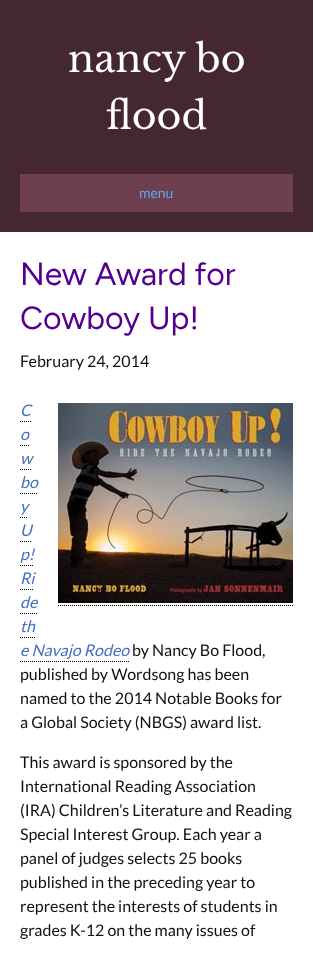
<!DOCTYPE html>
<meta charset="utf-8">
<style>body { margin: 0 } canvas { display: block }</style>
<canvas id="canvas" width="313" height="954"></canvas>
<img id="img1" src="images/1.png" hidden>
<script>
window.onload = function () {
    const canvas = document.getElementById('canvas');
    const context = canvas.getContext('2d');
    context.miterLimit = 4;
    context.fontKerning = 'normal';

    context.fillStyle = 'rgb(68, 39, 49)';
    context.fillRect(0, 0, 313, 954);
    context.fillStyle = 'rgb(110, 63, 79)';
    context.fillRect(20, 174, 273, 38);
    context.fillStyle = 'rgb(255, 255, 255)';
    context.fillRect(0, 232, 313, 722);
    context.beginPath();
    context.moveTo(58, 605.5);
    context.lineTo(293, 605.5);
    context.strokeStyle = 'rgb(0, 0, 0)';
    context.setLineDash([1, 1]);
    context.stroke();
    context.beginPath();
    context.moveTo(20, 421.5);
    context.lineTo(31, 421.5);
    context.moveTo(20, 445.5);
    context.lineTo(29, 445.5);
    context.moveTo(20, 469.5);
    context.lineTo(32, 469.5);
    context.stroke();
    context.beginPath();
    context.moveTo(20, 493.5);
    context.lineTo(38, 493.5);
    context.moveTo(20, 517.5);
    context.lineTo(28, 517.5);
    context.moveTo(20, 541.5);
    context.lineTo(32, 541.5);
    context.stroke();
    context.beginPath();
    context.moveTo(20, 565.5);
    context.lineTo(34, 565.5);
    context.moveTo(20, 589.5);
    context.lineTo(34, 589.5);
    context.moveTo(20, 613.5);
    context.lineTo(37, 613.5);
    context.stroke();
    context.beginPath();
    context.moveTo(20, 637.5);
    context.lineTo(35, 637.5);
    context.stroke();
    context.beginPath();
    context.moveTo(20, 661.5);
    context.lineTo(129, 661.5);
    context.stroke();
    context.drawImage(document.getElementById('img1'), 58, 403, 235, 200);
    context.font = '38px Libre Baskerville';
    context.fillText('nancy bo', 68, 72);
    context.fillText('flood', 106, 129);
    context.font = '14px Lato';
    context.fillStyle = 'rgb(91, 174, 231)';
    context.fillText('menu', 139, 198);
    context.font = '300 32px Figtree';
    context.fillStyle = 'rgb(83, 0, 142)';
    context.fillText('New Award for', 20, 285);
    context.fillText('Cowboy Up!', 20, 329);
    context.font = '16px Lato';
    context.fillStyle = 'rgb(17, 17, 17)';
    context.fillText('February 24, 2014', 20, 367);
    context.font = 'italic 16px Lato';
    context.fillStyle = 'rgb(67, 111, 189)';
    context.fillText('C', 20, 416);
    context.fillText('o', 20, 440);
    context.fillText('w', 20, 464);
    context.fillText('bo', 20, 488);
    context.fillText('y', 20, 512);
    context.fillText('U', 20, 536);
    context.fillText('p!', 20, 560);
    context.fillText('Ri', 20, 584);
    context.fillText('de', 20, 608);
    context.fillText('th', 20, 632);
    context.fillText('e Navajo Rodeo', 20, 656);
    context.font = '16px Lato';
    context.fillStyle = 'rgb(17, 17, 17)';
    context.fillText('by Nancy Bo Flood,', 132, 656);
    context.fillText('published by Wordsong has been', 20, 680);
    context.fillText('named to the 2014 Notable Books for', 20, 704);
    context.fillText('a Global Society (NBGS) award list.', 20, 728);
    context.fillText('This award is sponsored by the', 20, 768);
    context.fillText('International Reading Association', 20, 792);
    context.fillText('(IRA) Children’s Literature and Reading', 20, 816);
    context.fillText('Special Interest Group. Each year a', 20, 840);
    context.fillText('panel of judges selects 25 books', 20, 864);
    context.fillText('published in the preceding year to', 20, 888);
    context.fillText('represent the interests of students in', 20, 912);
    context.fillText('grades K-12 on the many issues of', 20, 936);
};
</script>
